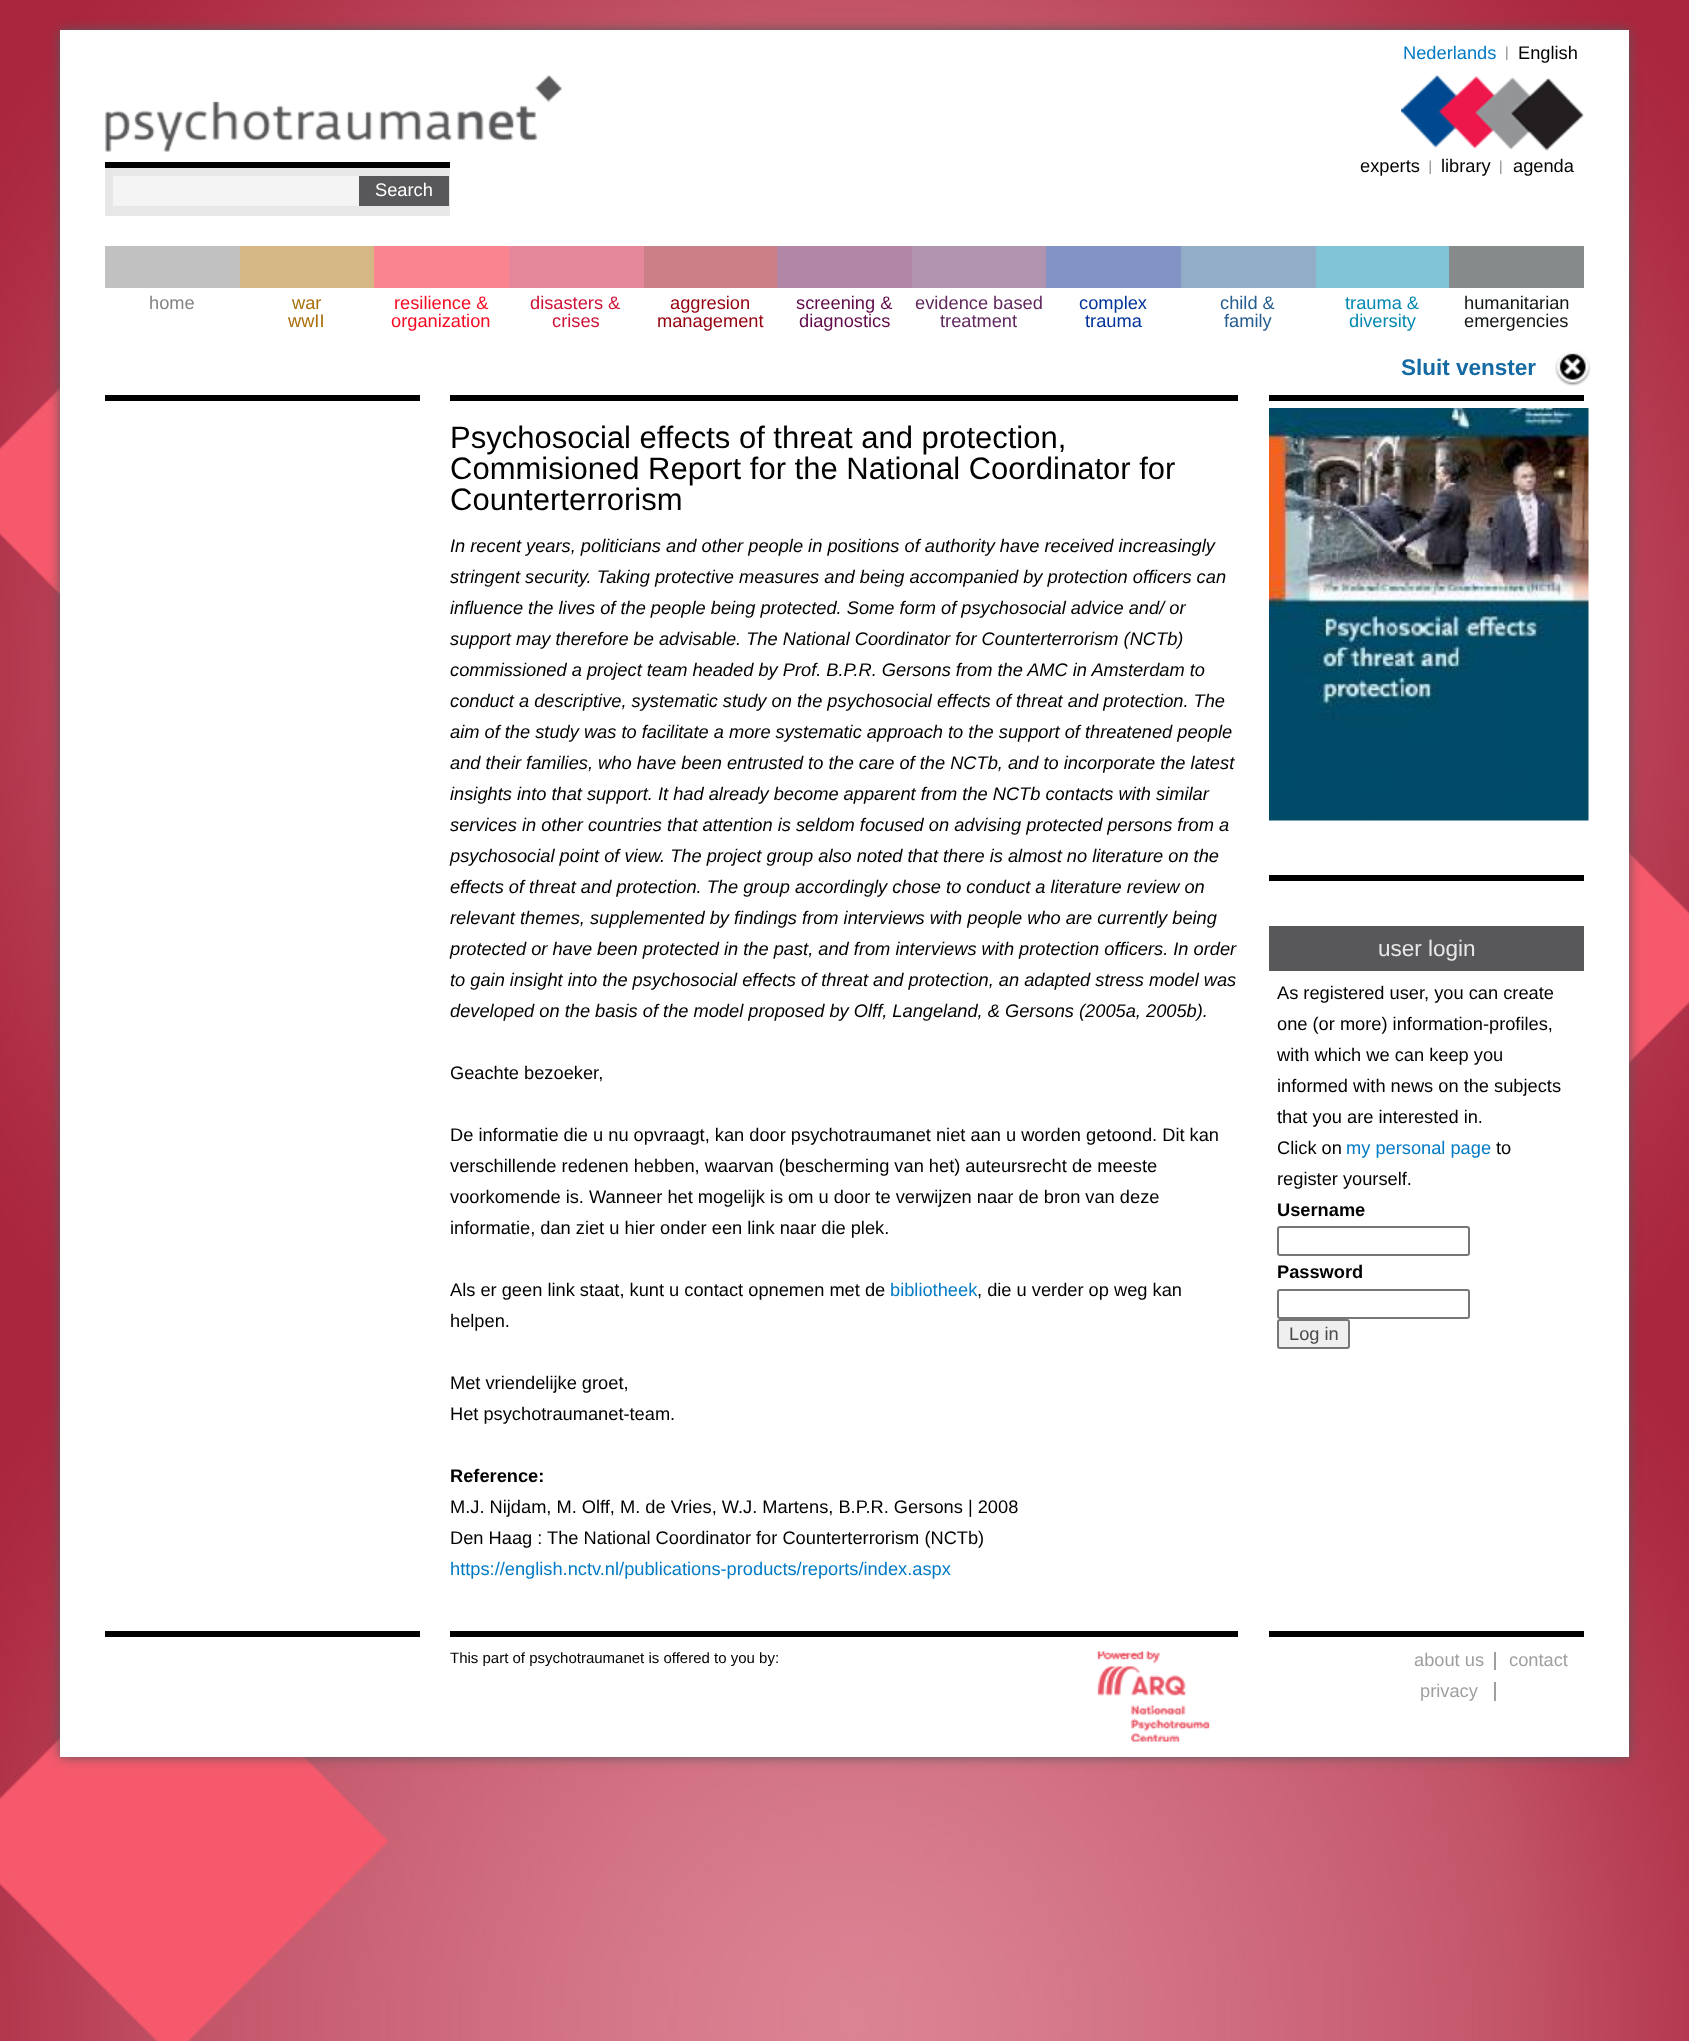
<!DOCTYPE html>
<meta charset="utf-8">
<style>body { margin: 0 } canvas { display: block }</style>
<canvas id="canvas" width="1689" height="2041"></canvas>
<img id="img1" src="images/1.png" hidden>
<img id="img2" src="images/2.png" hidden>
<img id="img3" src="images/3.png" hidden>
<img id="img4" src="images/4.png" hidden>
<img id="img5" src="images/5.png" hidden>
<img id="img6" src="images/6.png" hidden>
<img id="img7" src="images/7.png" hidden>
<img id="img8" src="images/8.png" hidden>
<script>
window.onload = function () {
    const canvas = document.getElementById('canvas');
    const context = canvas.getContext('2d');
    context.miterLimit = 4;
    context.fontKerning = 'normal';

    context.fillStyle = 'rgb(255, 255, 255)';
    context.fillRect(0, 0, 1689, 2041);
    context.drawImage(document.getElementById('img1'), 0, 0, 1689, 2041);
    context.fillStyle = 'rgb(88, 88, 90)';
    context.filter = 'blur(6px)';
    context.beginPath();
    context.rect(60, 30, 1569, 1727);
    context.fill();
    context.filter = 'none';
    context.fillStyle = 'rgb(255, 255, 255)';
    context.fillRect(60, 30, 1569, 1727);
    context.drawImage(document.getElementById('img2'), 105, 75, 458, 77);
    context.fillStyle = 'rgb(231, 231, 232)';
    context.fillRect(105, 168, 345, 48);
    context.fillStyle = 'rgb(0, 0, 0)';
    context.fillRect(105, 162, 345, 6);
    context.fillStyle = 'rgb(244, 244, 245)';
    context.fillRect(113, 176, 246, 30);
    context.fillStyle = 'rgb(88, 88, 90)';
    context.fillRect(359, 176, 90, 30);
    context.drawImage(document.getElementById('img3'), 1506, 46, 2, 14);
    context.drawImage(document.getElementById('img4'), 1401, 75, 183, 76);
    context.drawImage(document.getElementById('img5'), 1429, 160, 2, 14);
    context.drawImage(document.getElementById('img3'), 1500, 160, 2, 14);
    context.drawImage(document.getElementById('img6'), 1555, 351, 36, 35);
    context.fillStyle = 'rgb(193, 193, 193)';
    context.fillRect(105, 246, 135, 42);
    context.fillStyle = 'rgb(212, 183, 133)';
    context.fillRect(240, 246, 134, 42);
    context.fillStyle = 'rgb(250, 133, 144)';
    context.fillRect(374, 246, 135, 42);
    context.fillStyle = 'rgb(230, 136, 155)';
    context.fillRect(509, 246, 135, 42);
    context.fillStyle = 'rgb(202, 128, 134)';
    context.fillRect(644, 246, 133, 42);
    context.fillStyle = 'rgb(176, 133, 165)';
    context.fillRect(777, 246, 135, 42);
    context.fillStyle = 'rgb(176, 147, 174)';
    context.fillRect(912, 246, 134, 42);
    context.fillStyle = 'rgb(131, 148, 196)';
    context.fillRect(1046, 246, 135, 42);
    context.fillStyle = 'rgb(146, 174, 199)';
    context.fillRect(1181, 246, 135, 42);
    context.fillStyle = 'rgb(129, 196, 216)';
    context.fillRect(1316, 246, 133, 42);
    context.fillStyle = 'rgb(135, 138, 138)';
    context.fillRect(1449, 246, 135, 42);
    context.fillStyle = 'rgb(0, 0, 0)';
    context.fillRect(105, 395, 315, 6);
    context.fillRect(105, 1631, 315, 6);
    context.fillRect(450, 395, 788, 6);
    context.fillRect(1269, 395, 315, 6);
    context.fillRect(1269, 1631, 315, 6);
    context.drawImage(document.getElementById('img7'), 1269, 408, 320, 413);
    context.fillRect(1269, 875, 315, 6);
    context.fillStyle = 'rgb(88, 88, 90)';
    context.fillRect(1269, 926, 315, 45);
    context.beginPath();
    context.roundRect(1278, 1227, 191, 28, 2);
    context.strokeStyle = 'rgb(118, 118, 118)';
    context.lineWidth = 2;
    context.stroke();
    context.beginPath();
    context.roundRect(1278, 1290, 191, 28, 2);
    context.stroke();
    context.fillStyle = 'rgb(239, 239, 239)';
    context.beginPath();
    context.roundRect(1278, 1320, 71, 28, 2);
    context.fill();
    context.stroke();
    context.fillStyle = 'rgb(0, 0, 0)';
    context.fillRect(450, 1631, 788, 6);
    context.drawImage(document.getElementById('img8'), 1097, 1651, 113, 91);
    context.fillStyle = 'rgb(159, 159, 161)';
    context.fillRect(1494, 1652, 2, 18);
    context.fillRect(1494, 1682, 2, 19);
    context.font = '18.25px Liberation Sans';
    context.fillStyle = 'rgb(255, 255, 255)';
    context.fillText('Search', 375, 196);
    context.fillStyle = 'rgb(2, 122, 198)';
    context.fillText('Nederlands', 1403, 59);
    context.fillStyle = 'rgb(0, 0, 0)';
    context.fillText('English', 1518, 59);
    context.fillText('experts', 1360, 172);
    context.fillText('library', 1441, 172);
    context.fillText('agenda', 1513, 172);
    context.font = 'bold 22.5px Liberation Sans';
    context.fillStyle = 'rgb(21, 106, 163)';
    context.fillText('Sluit venster', 1401, 375);
    context.font = '18.25px Liberation Sans';
    context.fillStyle = 'rgb(132, 132, 132)';
    context.fillText('home', 149, 309);
    context.fillStyle = 'rgb(169, 111, 11)';
    context.fillText('war', 292, 309);
    context.fillText('wwII', 288, 327);
    context.fillStyle = 'rgb(246, 11, 34)';
    context.fillText('resilience &', 394, 309);
    context.fillText('organization', 391, 327);
    context.fillStyle = 'rgb(206, 18, 56)';
    context.fillText('disasters &', 530, 309);
    context.fillText('crises', 552, 327);
    context.fillStyle = 'rgb(149, 1, 14)';
    context.fillText('aggresion', 670, 309);
    context.fillText('management', 657, 327);
    context.fillStyle = 'rgb(97, 11, 75)';
    context.fillText('screening &', 796, 309);
    context.fillText('diagnostics', 799, 327);
    context.fillStyle = 'rgb(97, 40, 93)';
    context.fillText('evidence based', 915, 309);
    context.fillText('treatment', 940, 327);
    context.fillStyle = 'rgb(0, 51, 153)';
    context.fillText('complex', 1079, 309);
    context.fillText('trauma', 1085, 327);
    context.fillStyle = 'rgb(37, 93, 143)';
    context.fillText('child &', 1220, 309);
    context.fillText('family', 1224, 327);
    context.fillStyle = 'rgb(4, 137, 177)';
    context.fillText('trauma &', 1345, 309);
    context.fillText('diversity', 1349, 327);
    context.fillStyle = 'rgb(16, 21, 22)';
    context.fillText('humanitarian', 1464, 309);
    context.fillText('emergencies', 1464, 327);
    context.font = '31px Liberation Sans';
    context.fillStyle = 'rgb(0, 0, 0)';
    context.fillText('Psychosocial effects of threat and protection,', 450, 448);
    context.fillText('Commisioned Report for the National Coordinator for', 450, 479);
    context.fillText('Counterterrorism', 450, 510);
    context.font = 'italic 18.25px Liberation Sans';
    context.fillText('In recent years, politicians and other people in positions of authority have received increasingly', 450, 552);
    context.fillText('stringent security. Taking protective measures and being accompanied by protection officers can', 450, 583);
    context.fillText('influence the lives of the people being protected. Some form of psychosocial advice and/ or', 450, 614);
    context.fillText('support may therefore be advisable. The National Coordinator for Counterterrorism (NCTb)', 450, 645);
    context.fillText('commissioned a project team headed by Prof. B.P.R. Gersons from the AMC in Amsterdam to', 450, 676);
    context.fillText('conduct a descriptive, systematic study on the psychosocial effects of threat and protection. The', 450, 707);
    context.fillText('aim of the study was to facilitate a more systematic approach to the support of threatened people', 450, 738);
    context.fillText('and their families, who have been entrusted to the care of the NCTb, and to incorporate the latest', 450, 769);
    context.fillText('insights into that support. It had already become apparent from the NCTb contacts with similar', 450, 800);
    context.fillText('services in other countries that attention is seldom focused on advising protected persons from a', 450, 831);
    context.fillText('psychosocial point of view. The project group also noted that there is almost no literature on the', 450, 862);
    context.fillText('effects of threat and protection. The group accordingly chose to conduct a literature review on', 450, 893);
    context.fillText('relevant themes, supplemented by findings from interviews with people who are currently being', 450, 924);
    context.fillText('protected or have been protected in the past, and from interviews with protection officers. In order', 450, 955);
    context.fillText('to gain insight into the psychosocial effects of threat and protection, an adapted stress model was', 450, 986);
    context.fillText('developed on the basis of the model proposed by Olff, Langeland, & Gersons (2005a, 2005b).', 450, 1017);
    context.font = '18.25px Liberation Sans';
    context.fillText('Geachte bezoeker,', 450, 1079);
    context.fillText('De informatie die u nu opvraagt, kan door psychotraumanet niet aan u worden getoond. Dit kan', 450, 1141);
    context.fillText('verschillende redenen hebben, waarvan (bescherming van het) auteursrecht de meeste', 450, 1172);
    context.fillText('voorkomende is. Wanneer het mogelijk is om u door te verwijzen naar de bron van deze', 450, 1203);
    context.fillText('informatie, dan ziet u hier onder een link naar die plek.', 450, 1234);
    context.fillText('Als er geen link staat, kunt u contact opnemen met de', 450, 1296);
    context.fillStyle = 'rgb(2, 122, 198)';
    context.fillText('bibliotheek', 890, 1296);
    context.fillStyle = 'rgb(0, 0, 0)';
    context.fillText(', die u verder op weg kan', 977, 1296);
    context.fillText('helpen.', 450, 1327);
    context.fillText('Met vriendelijke groet,', 450, 1389);
    context.fillText('Het psychotraumanet-team.', 450, 1420);
    context.font = 'bold 18.25px Liberation Sans';
    context.fillText('Reference:', 450, 1482);
    context.font = '18.25px Liberation Sans';
    context.fillText('M.J. Nijdam, M. Olff, M. de Vries, W.J. Martens, B.P.R. Gersons | 2008', 450, 1513);
    context.fillText('Den Haag : The National Coordinator for Counterterrorism (NCTb)', 450, 1544);
    context.fillStyle = 'rgb(2, 122, 198)';
    context.fillText('https://english.nctv.nl/publications-products/reports/index.aspx', 450, 1575);
    context.font = '22.5px Liberation Sans';
    context.fillStyle = 'rgb(231, 231, 232)';
    context.fillText('user login', 1378, 956);
    context.font = '18.25px Liberation Sans';
    context.fillStyle = 'rgb(0, 0, 0)';
    context.fillText('As registered user, you can create', 1277, 999);
    context.fillText('one (or more) information-profiles,', 1277, 1030);
    context.fillText('with which we can keep you', 1277, 1061);
    context.fillText('informed with news on the subjects', 1277, 1092);
    context.fillText('that you are interested in.', 1277, 1123);
    context.fillText('Click on', 1277, 1154);
    context.fillStyle = 'rgb(2, 122, 198)';
    context.fillText('my personal page', 1346, 1154);
    context.fillStyle = 'rgb(0, 0, 0)';
    context.fillText('to', 1496, 1154);
    context.fillText('register yourself.', 1277, 1185);
    context.font = 'bold 18.25px Liberation Sans';
    context.fillText('Username', 1277, 1216);
    context.fillText('Password', 1277, 1278);
    context.font = '18.25px Liberation Sans';
    context.fillStyle = 'rgb(73, 73, 73)';
    context.fillText('Log in', 1289, 1340);
    context.font = '15px Liberation Sans';
    context.fillStyle = 'rgb(0, 0, 0)';
    context.fillText('This part of psychotraumanet is offered to you by:', 450, 1663);
    context.font = '18.25px Liberation Sans';
    context.fillStyle = 'rgb(159, 159, 161)';
    context.fillText('about us', 1414, 1666);
    context.fillText('contact', 1509, 1666);
    context.fillText('privacy', 1420, 1697);
};
</script>
